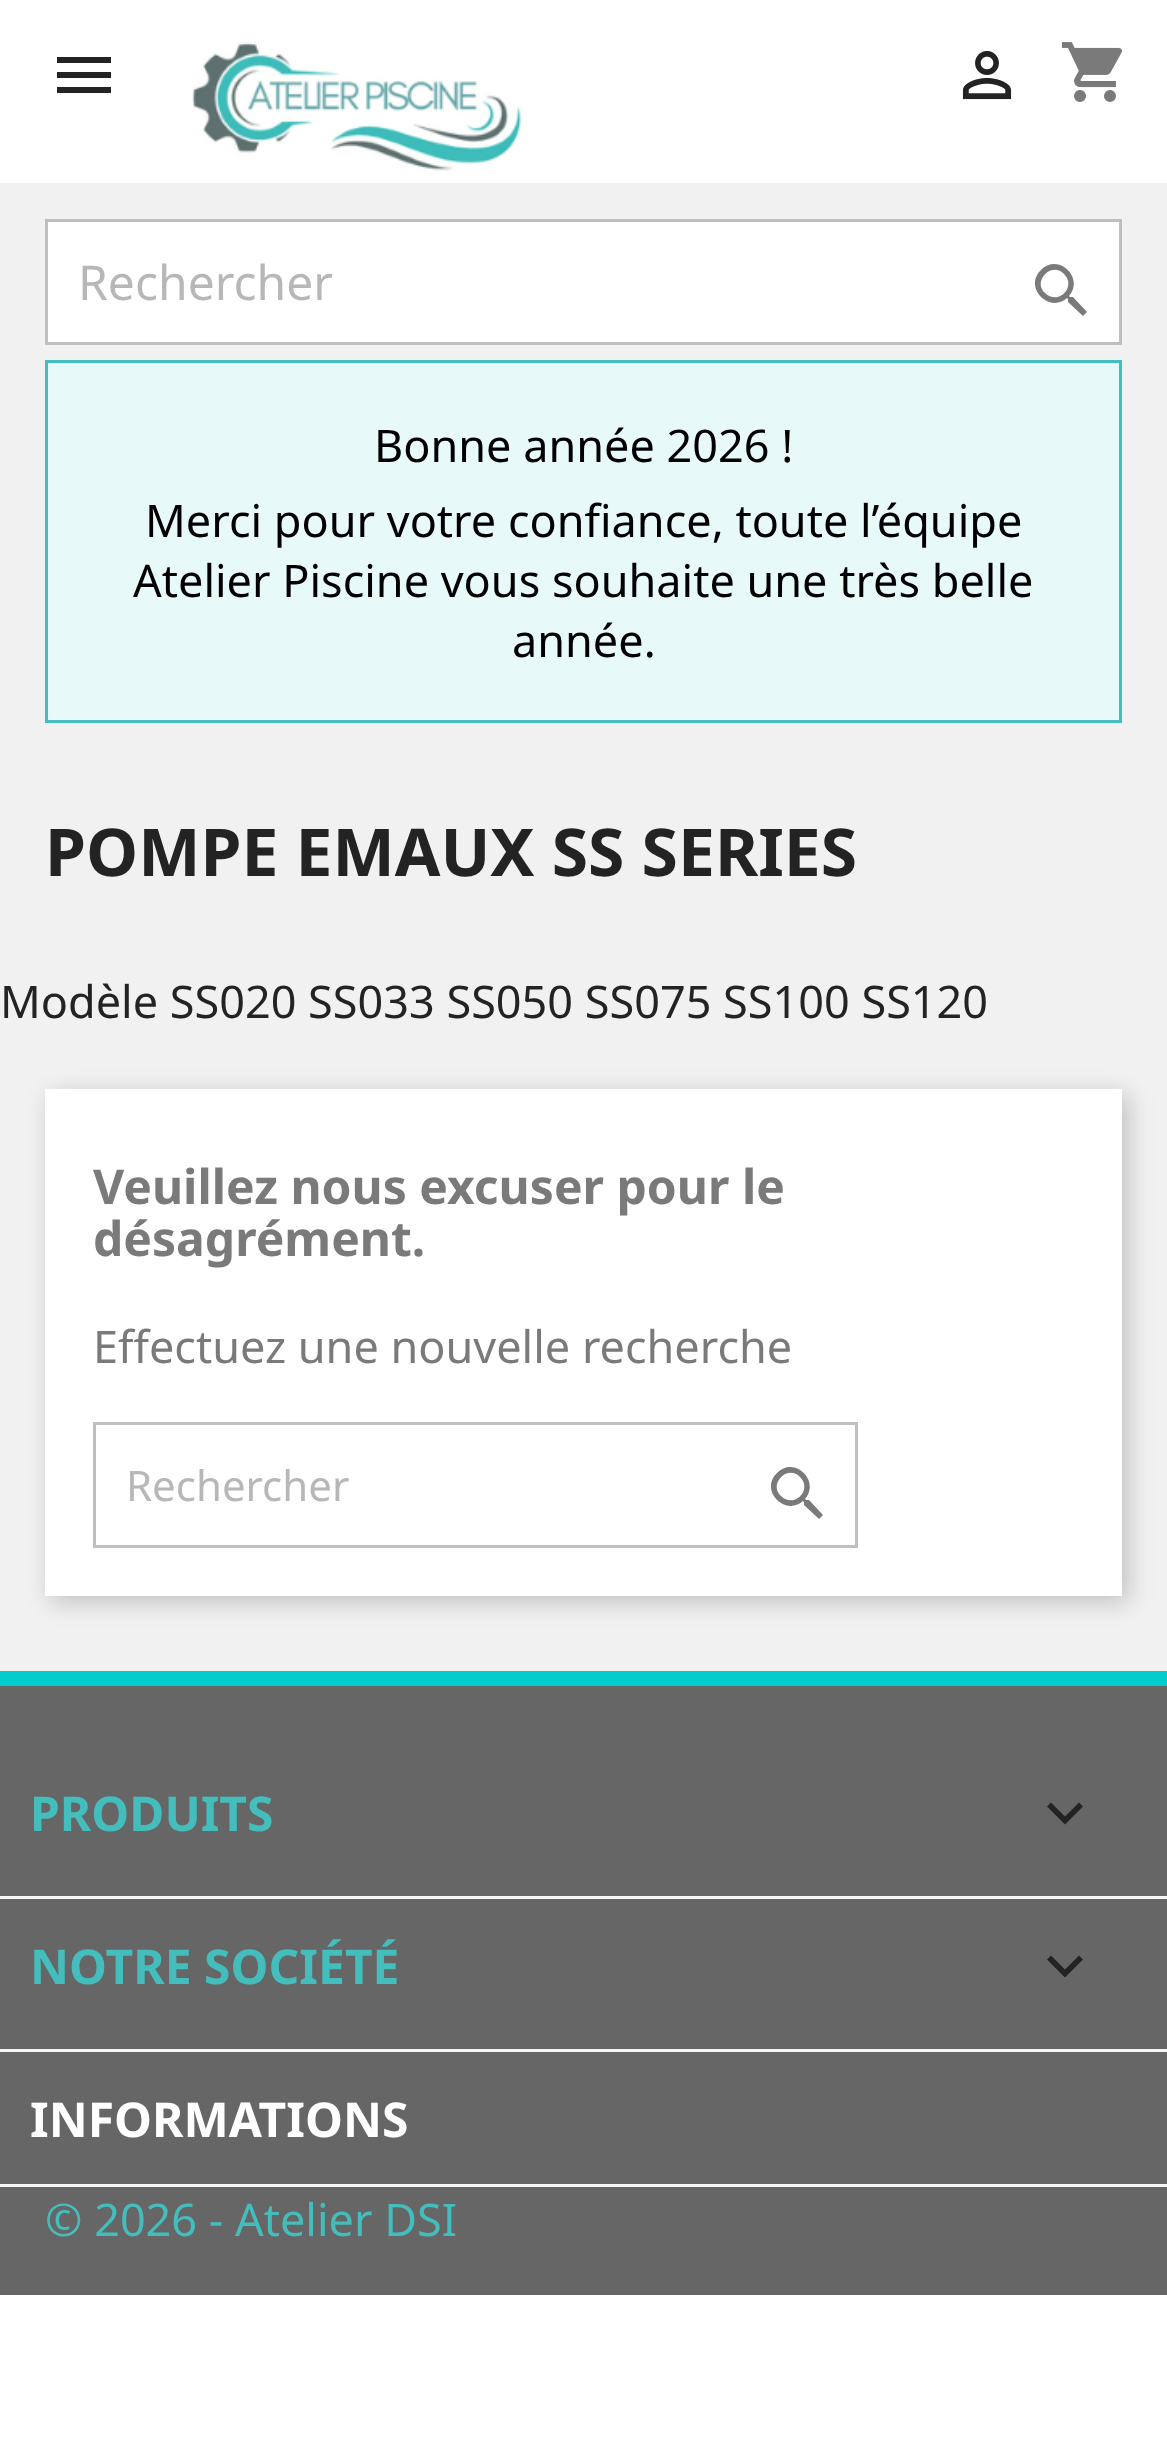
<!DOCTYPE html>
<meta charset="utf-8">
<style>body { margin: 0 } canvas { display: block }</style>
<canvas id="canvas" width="1167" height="2452"></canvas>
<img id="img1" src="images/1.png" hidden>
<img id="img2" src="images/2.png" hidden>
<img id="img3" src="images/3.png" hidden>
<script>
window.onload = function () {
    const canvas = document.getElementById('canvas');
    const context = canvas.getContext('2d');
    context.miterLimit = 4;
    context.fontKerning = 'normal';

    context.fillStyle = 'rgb(255, 255, 255)';
    context.fillRect(0, 0, 1167, 2452);
    context.fillStyle = 'rgb(241, 241, 241)';
    context.fillRect(0, 183, 1167, 1488);
    context.fillStyle = 'rgb(35, 35, 35)';
    context.beginPath();
    context.moveTo(57, 57);
    context.lineTo(111, 57);
    context.lineTo(111, 63);
    context.lineTo(57, 63);
    context.closePath();
    context.moveTo(57, 78);
    context.lineTo(57, 72);
    context.lineTo(111, 72);
    context.lineTo(111, 78);
    context.closePath();
    context.moveTo(57, 93);
    context.lineTo(57, 87);
    context.lineTo(111, 87);
    context.lineTo(111, 93);
    context.closePath();
    context.fill();
    context.drawImage(document.getElementById('img1'), 192, 42, 330, 129);
    context.drawImage(document.getElementById('img2'), 962, 51, 50, 49);
    context.drawImage(document.getElementById('img3'), 1061, 42, 61, 60);
    context.fillStyle = 'rgb(255, 255, 255)';
    context.beginPath();
    context.rect(46.5, 220.5, 1074, 123);
    context.fill();
    context.strokeStyle = 'rgb(191, 191, 191)';
    context.lineWidth = 3;
    context.stroke();
    context.fillStyle = 'rgb(122, 122, 122)';
    context.beginPath();
    context.moveTo(1045, 293);
    context.bezierCurveTo(1058, 306, 1077, 287, 1064, 274);
    context.bezierCurveTo(1052, 261, 1032, 281, 1045, 293);
    context.closePath();
    context.moveTo(1073, 297);
    context.lineTo(1087, 312);
    context.lineTo(1083, 316);
    context.lineTo(1068, 302);
    context.lineTo(1068, 299);
    context.lineTo(1067, 298);
    context.bezierCurveTo(1049, 314, 1023, 287, 1041, 270);
    context.bezierCurveTo(1058, 252, 1085, 278, 1069, 296);
    context.lineTo(1070, 297);
    context.closePath();
    context.fill();
    context.fillStyle = 'rgb(232, 249, 249)';
    context.beginPath();
    context.rect(46.5, 361.5, 1074, 360);
    context.fill();
    context.strokeStyle = 'rgb(67, 190, 189)';
    context.stroke();
    context.fillStyle = 'rgba(0, 0, 0, 0.2)';
    context.filter = 'blur(12px)';
    context.beginPath();
    context.rect(51, 1095, 1077, 507);
    context.fill();
    context.filter = 'none';
    context.fillStyle = 'rgb(255, 255, 255)';
    context.fillRect(45, 1089, 1077, 507);
    context.strokeStyle = 'rgb(191, 191, 191)';
    context.strokeRect(94.5, 1423.5, 762, 123);
    context.fillStyle = 'rgb(122, 122, 122)';
    context.beginPath();
    context.moveTo(781, 1496);
    context.bezierCurveTo(794, 1509, 813, 1490, 800, 1477);
    context.bezierCurveTo(788, 1464, 768, 1484, 781, 1496);
    context.closePath();
    context.moveTo(809, 1500);
    context.lineTo(823, 1515);
    context.lineTo(819, 1519);
    context.lineTo(804, 1505);
    context.lineTo(804, 1502);
    context.lineTo(803, 1501);
    context.bezierCurveTo(785, 1517, 759, 1490, 777, 1473);
    context.bezierCurveTo(794, 1455, 821, 1481, 805, 1499);
    context.lineTo(806, 1500);
    context.closePath();
    context.fill();
    context.fillStyle = 'rgb(102, 102, 102)';
    context.fillRect(0, 1686, 1167, 609);
    context.fillStyle = 'rgb(0, 204, 204)';
    context.fillRect(0, 1671, 1167, 15);
    context.fillStyle = 'rgb(246, 246, 246)';
    context.fillRect(0, 1896, 1167, 3);
    context.fillStyle = 'rgb(35, 35, 35)';
    context.beginPath();
    context.moveTo(1051, 1802.5);
    context.lineTo(1065, 1816.5);
    context.lineTo(1079, 1802.5);
    context.lineTo(1083, 1806.5);
    context.lineTo(1065, 1824.5);
    context.lineTo(1047, 1806.5);
    context.closePath();
    context.fill();
    context.fillStyle = 'rgb(246, 246, 246)';
    context.fillRect(0, 2049, 1167, 3);
    context.fillStyle = 'rgb(35, 35, 35)';
    context.beginPath();
    context.moveTo(1051, 1955.5);
    context.lineTo(1065, 1969.5);
    context.lineTo(1079, 1955.5);
    context.lineTo(1083, 1959.5);
    context.lineTo(1065, 1977.5);
    context.lineTo(1047, 1959.5);
    context.closePath();
    context.fill();
    context.fillStyle = 'rgb(246, 246, 246)';
    context.fillRect(0, 2184, 1167, 3);
    context.font = '48px Noto Sans';
    context.fillStyle = 'rgb(183, 183, 183)';
    context.fillText('Rechercher', 78, 300);
    context.font = '45px Noto Sans';
    context.fillStyle = 'rgb(0, 0, 0)';
    context.fillText('Bonne année 2026 !', 374, 462);
    context.fillText('Merci pour votre confiance, toute l’équipe', 145, 537);
    context.fillText('Atelier Piscine vous souhaite une très belle', 133, 597);
    context.fillText('année.', 512, 657);
    context.font = 'bold 66px Noto Sans';
    context.fillStyle = 'rgb(35, 35, 35)';
    context.fillText('POMPE EMAUX SS SERIES', 45, 876);
    context.font = '45px Noto Sans';
    context.fillText('Modèle SS020 SS033 SS050 SS075 SS100 SS120', 0, 1018);
    context.font = 'bold 48px Noto Sans';
    context.fillStyle = 'rgb(122, 122, 122)';
    context.fillText('Veuillez nous excuser pour le', 93, 1204);
    context.fillText('désagrément.', 93, 1256);
    context.font = '45px Noto Sans';
    context.fillText('Effectuez une nouvelle recherche', 93, 1363);
    context.font = '42px Noto Sans';
    context.fillStyle = 'rgb(183, 183, 183)';
    context.fillText('Rechercher', 126, 1501);
    context.font = 'bold 48px Noto Sans';
    context.fillStyle = 'rgb(67, 190, 189)';
    context.fillText('PRODUITS', 30, 1831);
    context.fillText('NOTRE SOCIÉTÉ', 30, 1984);
    context.fillStyle = 'rgb(255, 255, 255)';
    context.fillText('INFORMATIONS', 30, 2137);
    context.font = '45px Noto Sans';
    context.fillStyle = 'rgb(67, 190, 189)';
    context.fillText('© 2026 - Atelier DSI', 45, 2236);
};
</script>
